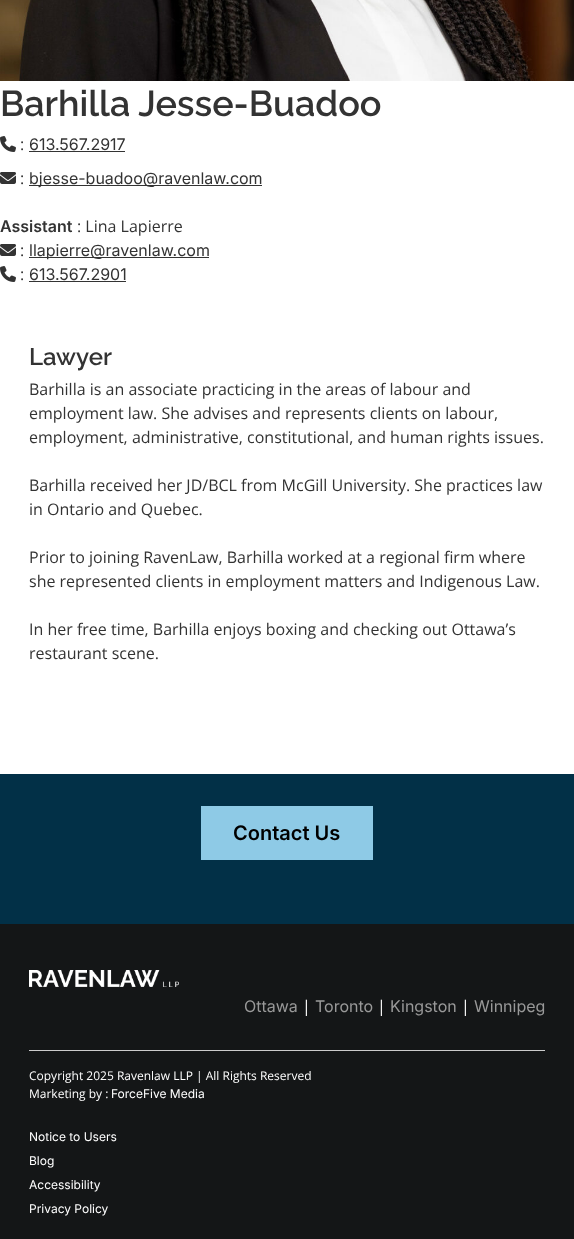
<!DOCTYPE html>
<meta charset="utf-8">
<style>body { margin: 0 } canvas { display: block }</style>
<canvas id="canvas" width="574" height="1239"></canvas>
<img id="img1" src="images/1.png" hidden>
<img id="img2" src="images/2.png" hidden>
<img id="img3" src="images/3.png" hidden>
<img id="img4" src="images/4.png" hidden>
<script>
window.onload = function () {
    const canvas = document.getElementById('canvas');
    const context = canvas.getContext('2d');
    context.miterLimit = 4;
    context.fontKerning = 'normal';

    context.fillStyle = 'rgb(255, 255, 255)';
    context.fillRect(0, 0, 574, 1239);
    context.drawImage(document.getElementById('img1'), 0, 0, 574, 81);
    context.drawImage(document.getElementById('img2'), 0, 136, 16, 16);
    context.fillStyle = 'rgb(51, 51, 51)';
    context.fillRect(29, 151, 96, 1);
    context.drawImage(document.getElementById('img3'), 0, 172, 16, 12);
    context.fillRect(29, 185, 233, 1);
    context.drawImage(document.getElementById('img3'), 0, 244, 16, 12);
    context.fillRect(29, 257, 180, 1);
    context.drawImage(document.getElementById('img2'), 0, 266, 16, 16);
    context.fillRect(29, 281, 97, 1);
    context.fillStyle = 'rgb(2, 48, 71)';
    context.fillRect(0, 774, 574, 150);
    context.fillStyle = 'rgb(142, 202, 230)';
    context.fillRect(201, 806, 172, 54);
    context.fillStyle = 'rgb(20, 22, 23)';
    context.fillRect(0, 924, 574, 315);
    context.drawImage(document.getElementById('img4'), 29, 970, 150, 17);
    context.fillStyle = 'rgb(204, 204, 204)';
    context.fillRect(29, 1050, 516, 1);
    context.font = '600 36px Raleway';
    context.fillStyle = 'rgb(51, 51, 51)';
    context.fillText('Barhilla Jesse-Buadoo', 0, 116);
    context.font = '16px Open Sans';
    context.fillText(':', 20, 150);
    context.font = '16px Inter';
    context.fillText('613.567.2917', 29, 150);
    context.font = '16px Open Sans';
    context.fillText(':', 20, 184);
    context.font = '16px Inter';
    context.fillText('bjesse-buadoo@ravenlaw.com', 29, 184);
    context.font = '600 16px Inter';
    context.fillText('Assistant', 0, 232);
    context.font = '16px Open Sans';
    context.fillText(': Lina Lapierre', 77, 232);
    context.fillText(':', 20, 256);
    context.font = '16px Inter';
    context.fillText('llapierre@ravenlaw.com', 29, 256);
    context.font = '16px Open Sans';
    context.fillText(':', 20, 280);
    context.font = '16px Inter';
    context.fillText('613.567.2901', 29, 280);
    context.font = '600 24px Raleway';
    context.fillText('Lawyer', 29, 365);
    context.font = '16px Open Sans';
    context.fillText('Barhilla is an associate practicing in the areas of labour and', 29, 395);
    context.fillText('employment law. She advises and represents clients on labour,', 29, 419);
    context.fillText('employment, administrative, constitutional, and human rights issues.', 29, 443);
    context.fillText('Barhilla received her JD/BCL from McGill University. She practices law', 29, 491);
    context.fillText('in Ontario and Quebec.', 29, 515);
    context.fillText('Prior to joining RavenLaw, Barhilla worked at a regional firm where', 29, 563);
    context.fillText('she represented clients in employment matters and Indigenous Law.', 29, 587);
    context.fillText('In her free time, Barhilla enjoys boxing and checking out Ottawa’s', 29, 635);
    context.fillText('restaurant scene.', 29, 659);
    context.font = '600 20px Inter';
    context.fillStyle = 'rgb(0, 0, 0)';
    context.fillText('Contact Us', 233, 840);
    context.font = '16px Inter';
    context.fillStyle = 'rgb(153, 153, 153)';
    context.fillText('Ottawa', 244, 1012);
    context.font = '16px Open Sans';
    context.fillStyle = 'rgb(255, 255, 255)';
    context.fillText('|', 302, 1012);
    context.font = '16px Inter';
    context.fillStyle = 'rgb(153, 153, 153)';
    context.fillText('Toronto', 315, 1012);
    context.font = '16px Open Sans';
    context.fillStyle = 'rgb(255, 255, 255)';
    context.fillText('|', 377, 1012);
    context.font = '16px Inter';
    context.fillStyle = 'rgb(153, 153, 153)';
    context.fillText('Kingston', 390, 1012);
    context.font = '16px Open Sans';
    context.fillStyle = 'rgb(255, 255, 255)';
    context.fillText('|', 461, 1012);
    context.font = '16px Inter';
    context.fillStyle = 'rgb(153, 153, 153)';
    context.fillText('Winnipeg', 474, 1012);
    context.font = '12px Open Sans';
    context.fillStyle = 'rgb(255, 255, 255)';
    context.fillText('Copyright 2025 Ravenlaw LLP | All Rights Reserved', 29, 1080);
    context.fillText('Marketing by :', 29, 1098);
    context.font = '12px Inter';
    context.fillText('ForceFive Media', 111, 1098);
    context.fillText('Notice to Users', 29, 1141);
    context.fillText('Blog', 29, 1165);
    context.fillText('Accessibility', 29, 1189);
    context.fillText('Privacy Policy', 29, 1213);
};
</script>
